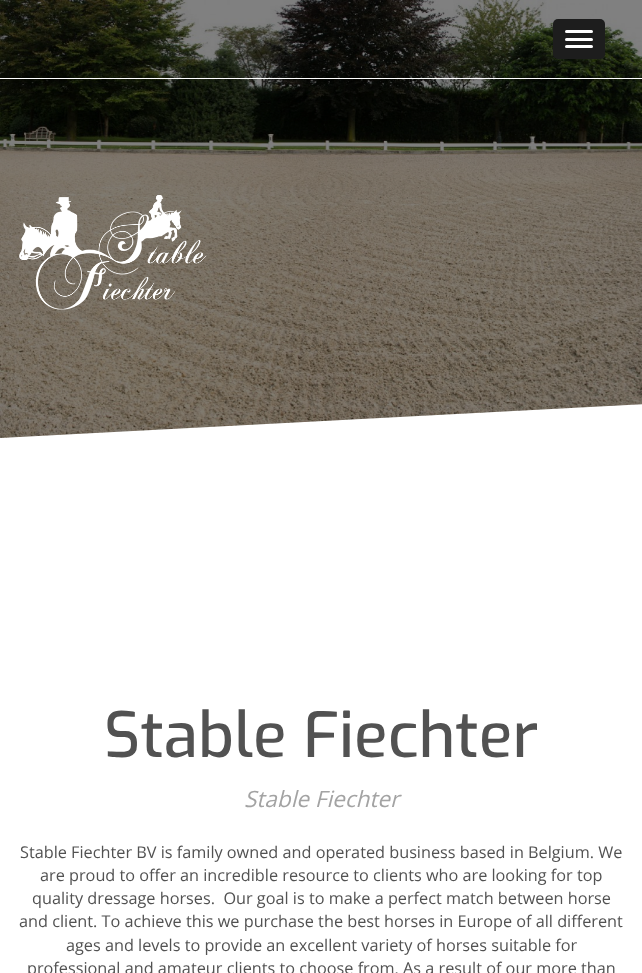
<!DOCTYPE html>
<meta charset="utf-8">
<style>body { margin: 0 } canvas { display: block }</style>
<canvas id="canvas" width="642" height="973"></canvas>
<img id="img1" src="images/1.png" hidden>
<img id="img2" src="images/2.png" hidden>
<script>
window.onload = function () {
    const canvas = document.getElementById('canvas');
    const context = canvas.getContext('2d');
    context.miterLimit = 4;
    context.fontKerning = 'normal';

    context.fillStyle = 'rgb(255, 255, 255)';
    context.fillRect(0, 0, 642, 973);
    context.drawImage(document.getElementById('img1'), 0, 0, 642, 438);
    context.drawImage(document.getElementById('img2'), 19, 195, 188, 115);
    context.beginPath();
    context.moveTo(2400, 438);
    context.lineTo(0, 438);
    context.lineTo(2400, 312);
    context.closePath();
    context.fill();
    context.fillRect(0, 78, 642, 1);
    context.fillStyle = 'rgb(29, 29, 29)';
    context.beginPath();
    context.roundRect(553, 19, 52, 40, 5);
    context.fill();
    context.fillStyle = 'rgb(255, 255, 255)';
    context.beginPath();
    context.roundRect(565, 30, 28, 3, 1.5);
    context.fill();
    context.beginPath();
    context.roundRect(565, 38, 28, 3, 1.5);
    context.fill();
    context.beginPath();
    context.roundRect(565, 45, 28, 3, 1.5);
    context.fill();
    context.font = '500 62.5px Exo';
    context.fillStyle = 'rgb(82, 82, 82)';
    context.fillText('Stable Fiechter', 104, 757);
    context.font = 'italic 22.5px Open Sans';
    context.fillStyle = 'rgb(163, 163, 163)';
    context.fillText('Stable Fiechter', 244, 807);
    context.font = '16.25px Open Sans';
    context.fillStyle = 'rgb(82, 82, 82)';
    context.fillText('Stable Fiechter BV is family owned and operated business based in Belgium. We', 20, 858);
    context.fillText('are proud to offer an incredible resource to clients who are looking for top', 40, 881);
    context.fillText('quality dressage horses.  Our goal is to make a perfect match between horse', 32, 904);
    context.fillText('and client. To achieve this we purchase the best horses in Europe of all different', 19, 927);
    context.fillText('ages and levels to provide an excellent variety of horses suitable for', 66, 951);
    context.fillText('professional and amateur clients to choose from. As a result of our more than', 27, 974);
};
</script>
